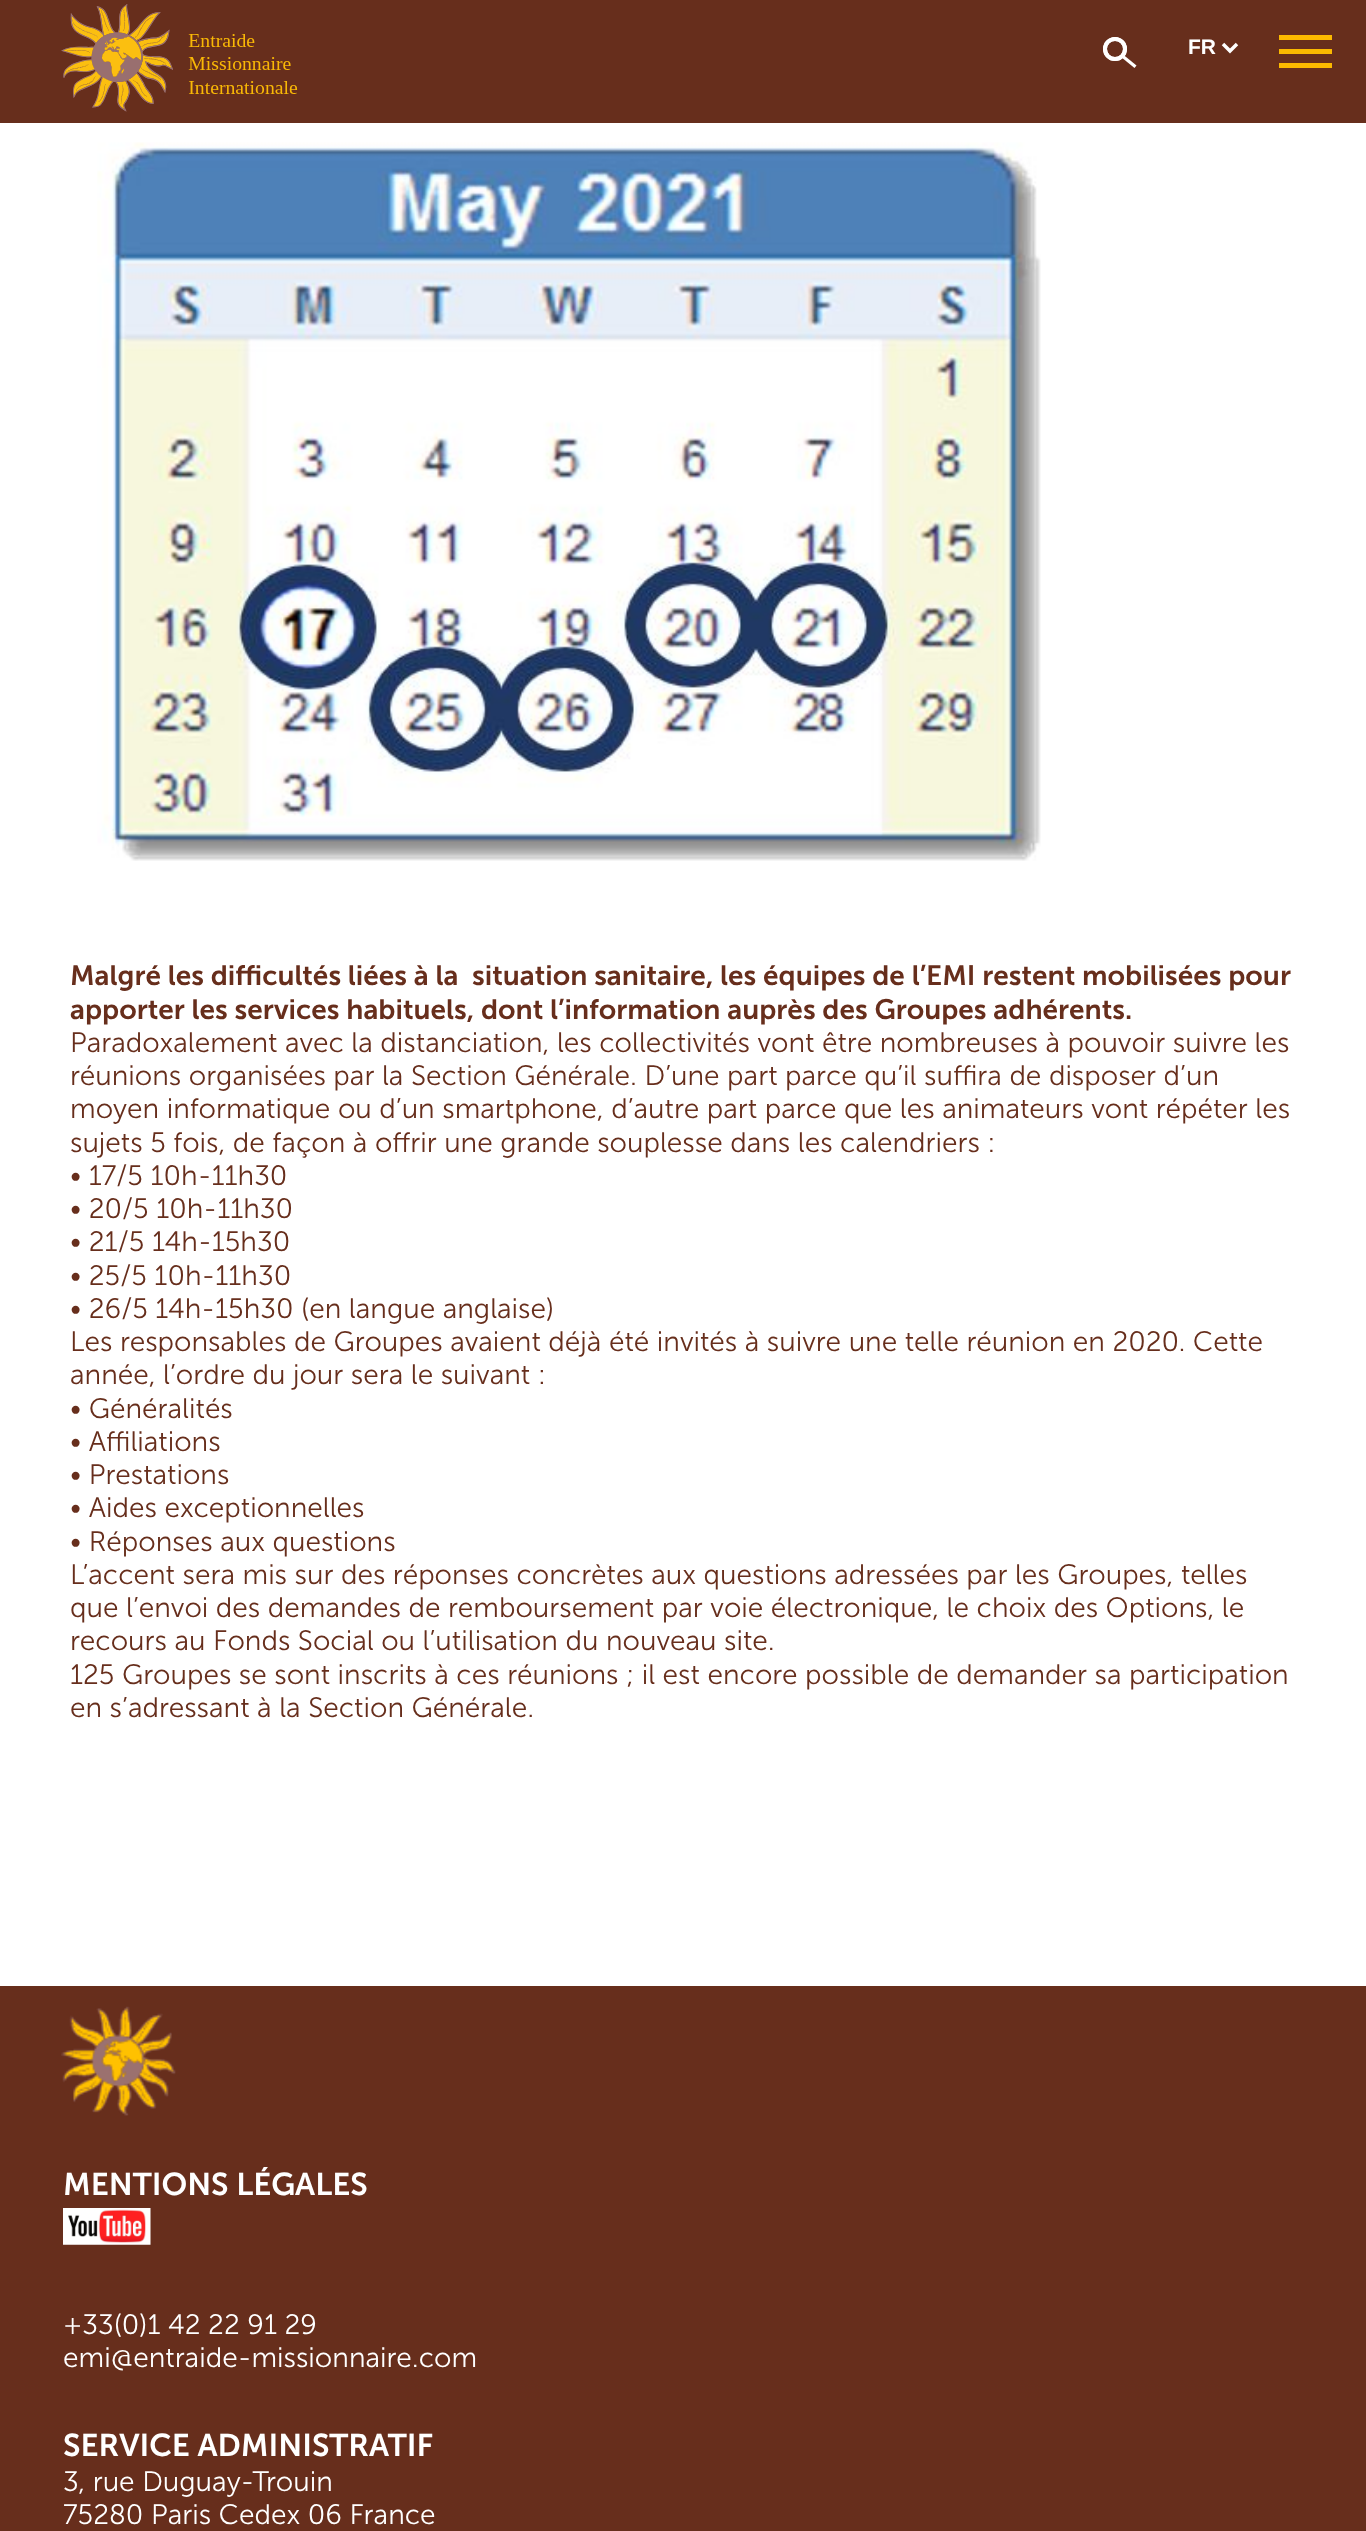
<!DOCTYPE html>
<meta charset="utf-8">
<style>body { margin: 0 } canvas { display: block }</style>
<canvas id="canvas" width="1366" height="2531"></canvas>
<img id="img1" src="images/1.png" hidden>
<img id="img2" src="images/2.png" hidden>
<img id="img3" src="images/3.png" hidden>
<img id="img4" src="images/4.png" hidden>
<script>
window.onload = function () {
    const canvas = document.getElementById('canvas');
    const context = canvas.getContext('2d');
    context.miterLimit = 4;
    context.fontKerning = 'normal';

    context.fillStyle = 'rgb(255, 255, 255)';
    context.fillRect(0, 0, 1366, 2531);
    context.fillStyle = 'rgb(103, 46, 28)';
    context.fillRect(0, 0, 1366, 123);
    context.drawImage(document.getElementById('img1'), 61, 4, 237, 108);
    context.beginPath();
    context.arc(1115, 49, 10, 0, 2 * Math.PI);
    context.strokeStyle = 'rgb(255, 255, 255)';
    context.lineWidth = 4;
    context.stroke();
    context.fillStyle = 'rgb(255, 255, 255)';
    context.beginPath();
    context.moveTo(1121, 57);
    context.lineTo(1123, 54.5);
    context.lineTo(1136.5, 65.5);
    context.lineTo(1134.5, 68);
    context.closePath();
    context.fill();
    context.beginPath();
    context.arc(1115, 49, 10, 0, 2 * Math.PI);
    context.stroke();
    context.beginPath();
    context.moveTo(1223, 44);
    context.lineTo(1230, 51);
    context.lineTo(1237, 44);
    context.lineWidth = 3.5;
    context.stroke();
    context.fillStyle = 'rgb(251, 185, 0)';
    context.fillRect(1279, 49, 53, 5);
    context.fillRect(1279, 35, 53, 5);
    context.fillRect(1279, 63, 53, 5);
    context.drawImage(document.getElementById('img2'), 97, 142, 944, 719);
    context.fillStyle = 'rgb(103, 46, 28)';
    context.fillRect(0, 1986, 1366, 545);
    context.drawImage(document.getElementById('img3'), 61, 2006, 115, 110);
    context.drawImage(document.getElementById('img4'), 63, 2208, 88, 37);
    context.font = 'bold 21px Liberation Sans';
    context.fillStyle = 'rgb(255, 255, 255)';
    context.fillText('FR', 1188, 54);
    context.font = '600 28px "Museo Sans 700"';
    context.fillStyle = 'rgb(103, 46, 28)';
    context.fillText('Malgré les difficultés liées à la  situation sanitaire, les équipes de l’EMI restent mobilisées pour', 70, 985);
    context.fillText('apporter les services habituels, dont l’information auprès des Groupes adhérents.', 70, 1019);
    context.font = '300 28px "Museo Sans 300"';
    context.fillText('Paradoxalement avec la distanciation, les collectivités vont être nombreuses à pouvoir suivre les', 70, 1052);
    context.fillText('réunions organisées par la Section Générale. D’une part parce qu’il suffira de disposer d’un', 70, 1085);
    context.fillText('moyen informatique ou d’un smartphone, d’autre part parce que les animateurs vont répéter les', 70, 1118);
    context.fillText('sujets 5 fois, de façon à offrir une grande souplesse dans les calendriers :', 70, 1152);
    context.fillText('• 17/5 10h-11h30', 70, 1185);
    context.fillText('• 20/5 10h-11h30', 70, 1218);
    context.fillText('• 21/5 14h-15h30', 70, 1251);
    context.fillText('• 25/5 10h-11h30', 70, 1285);
    context.fillText('• 26/5 14h-15h30 (en langue anglaise)', 70, 1318);
    context.fillText('Les responsables de Groupes avaient déjà été invités à suivre une telle réunion en 2020. Cette', 70, 1351);
    context.fillText('année, l’ordre du jour sera le suivant :', 70, 1384);
    context.fillText('• Généralités', 70, 1418);
    context.fillText('• Affiliations', 70, 1451);
    context.fillText('• Prestations', 70, 1484);
    context.fillText('• Aides exceptionnelles', 70, 1517);
    context.fillText('• Réponses aux questions', 70, 1551);
    context.fillText('L’accent sera mis sur des réponses concrètes aux questions adressées par les Groupes, telles', 70, 1584);
    context.fillText('que l’envoi des demandes de remboursement par voie électronique, le choix des Options, le', 70, 1617);
    context.fillText('recours au Fonds Social ou l’utilisation du nouveau site.', 70, 1650);
    context.fillText('125 Groupes se sont inscrits à ces réunions ; il est encore possible de demander sa participation', 70, 1684);
    context.fillText('en s’adressant à la Section Générale.', 70, 1717);
    context.font = '600 31.5px "Museo Sans 700"';
    context.fillStyle = 'rgb(255, 255, 255)';
    context.fillText('MENTIONS LÉGALES', 63, 2195);
    context.font = '300 28px "Museo Sans 300"';
    context.fillText('+33(0)1 42 22 91 29', 63, 2334);
    context.fillText('emi@entraide-missionnaire.com', 63, 2367);
    context.font = '600 31.5px "Museo Sans 700"';
    context.fillText('SERVICE ADMINISTRATIF', 63, 2456);
    context.font = '300 28px "Museo Sans 300"';
    context.fillText('3, rue Duguay-Trouin', 63, 2491);
    context.fillText('75280 Paris Cedex 06 France', 63, 2524);
};
</script>
